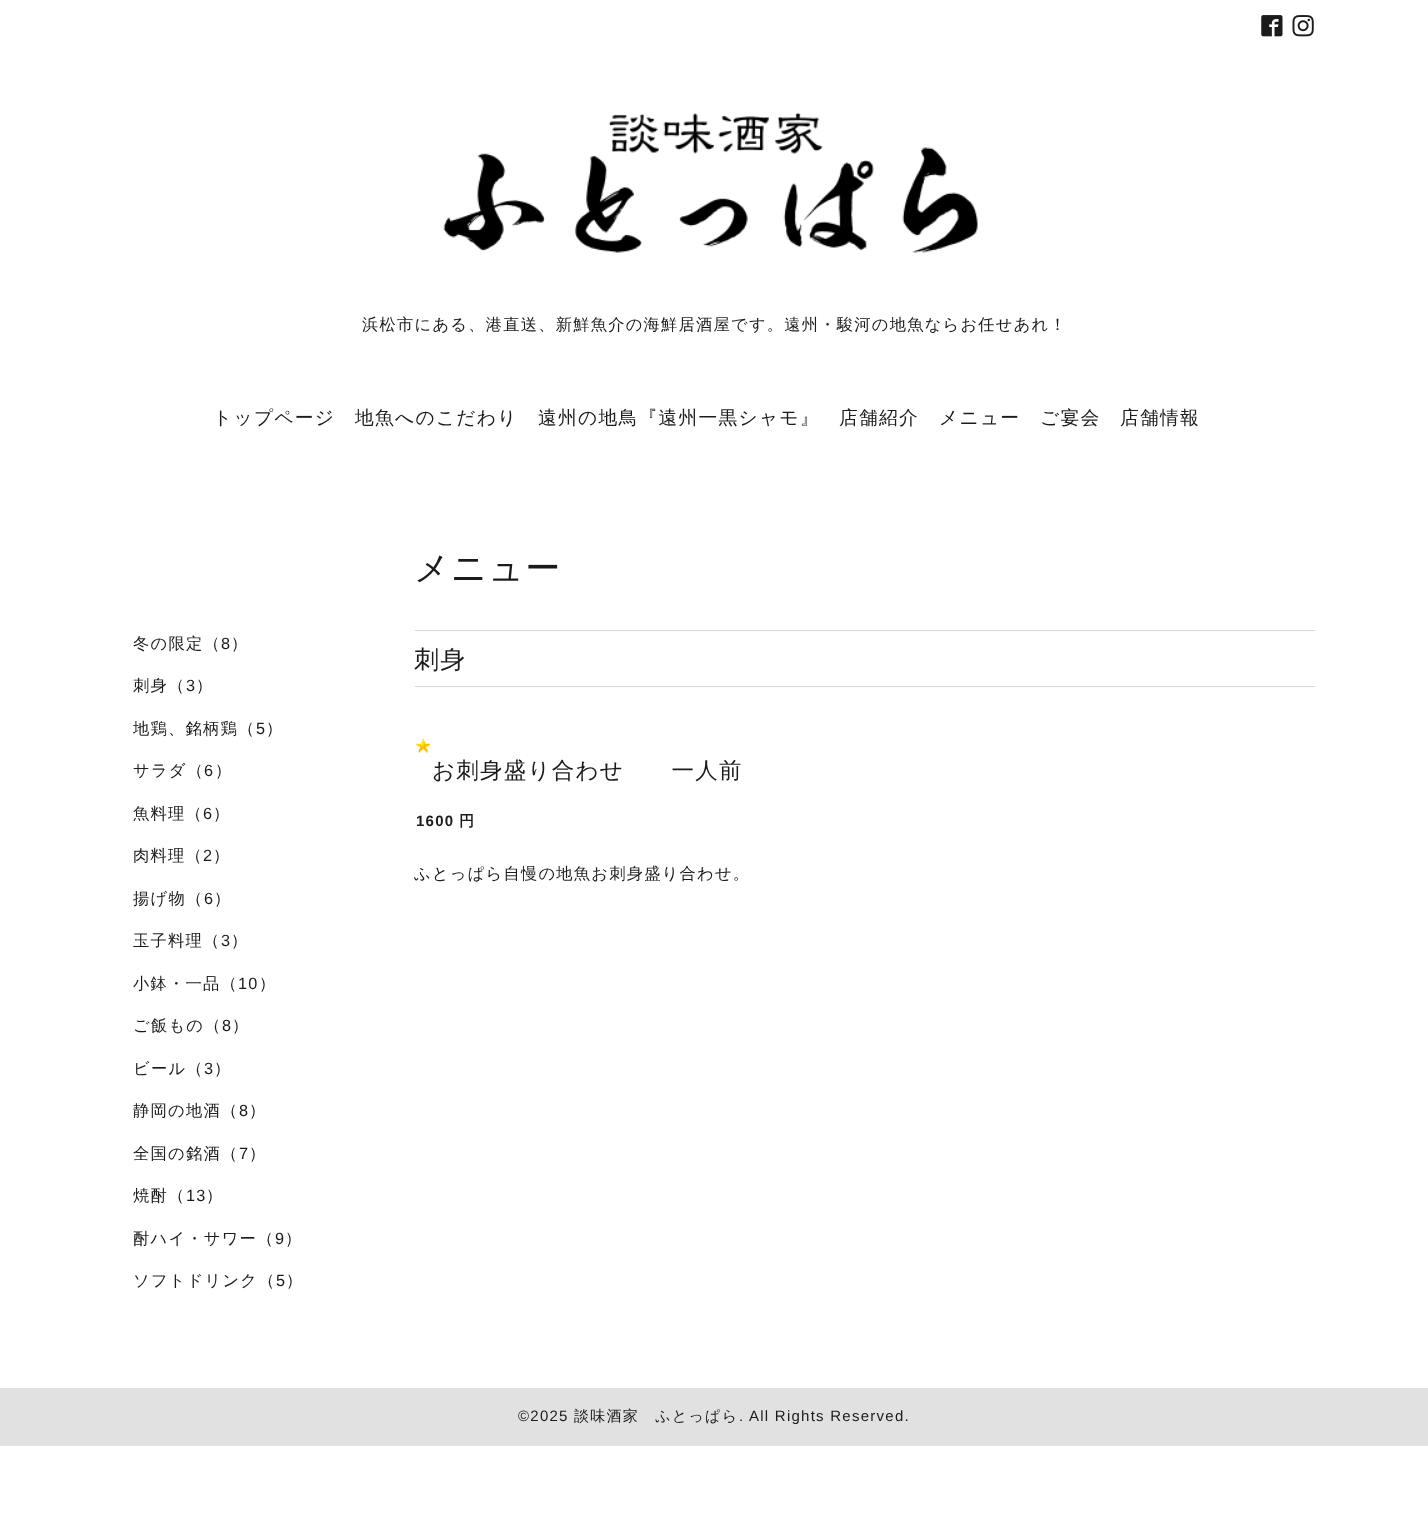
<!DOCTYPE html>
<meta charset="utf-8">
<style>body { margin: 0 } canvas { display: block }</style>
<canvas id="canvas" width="1428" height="1518"></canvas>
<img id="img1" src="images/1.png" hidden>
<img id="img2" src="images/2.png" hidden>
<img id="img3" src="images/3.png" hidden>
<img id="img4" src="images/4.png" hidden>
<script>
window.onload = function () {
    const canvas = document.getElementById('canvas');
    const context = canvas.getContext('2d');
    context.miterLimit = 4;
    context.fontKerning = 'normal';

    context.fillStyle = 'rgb(255, 255, 255)';
    context.fillRect(0, 0, 1428, 1518);
    context.drawImage(document.getElementById('img1'), 1261, 15, 22, 22);
    context.drawImage(document.getElementById('img2'), 1292, 15, 22, 22);
    context.drawImage(document.getElementById('img3'), 443, 112, 535, 141);
    context.fillStyle = 'rgb(216, 213, 209)';
    context.fillRect(415, 630, 900, 1);
    context.fillRect(415, 686, 900, 1);
    context.drawImage(document.getElementById('img4'), 416, 738, 15, 15);
    context.fillStyle = 'rgb(225, 225, 225)';
    context.fillRect(0, 1388, 1428, 58);
    context.letterSpacing = '1.25px';
    context.font = '500 16.25px WenQuanYi Zen Hei';
    context.fillStyle = 'rgb(27, 27, 27)';
    context.fillText('浜松市にある、港直送、新鮮魚介の海鮮居酒屋です。遠州・駿河の地魚ならお任せあれ！', 362, 330);
    context.font = '500 18.75px WenQuanYi Zen Hei';
    context.fillText('トップページ', 213, 424);
    context.fillText('地魚へのこだわり', 355, 424);
    context.fillText('遠州の地鳥『遠州一黒シャモ』', 538, 424);
    context.fillText('店舗紹介', 839, 424);
    context.fillText('メニュー', 939, 424);
    context.fillText('ご宴会', 1040, 424);
    context.fillText('店舗情報', 1120, 424);
    context.font = '500 16.25px WenQuanYi Zen Hei';
    context.fillText('冬の限定（', 133, 649);
    context.font = '16.25px Liberation Sans';
    context.fillText('8', 221, 649);
    context.font = '500 16.25px WenQuanYi Zen Hei';
    context.fillText('）', 231, 649);
    context.fillText('刺身（', 133, 691);
    context.font = '16.25px Liberation Sans';
    context.fillText('3', 186, 691);
    context.font = '500 16.25px WenQuanYi Zen Hei';
    context.fillText('）', 196, 691);
    context.fillText('地鶏、銘柄鶏（', 133, 734);
    context.font = '16.25px Liberation Sans';
    context.fillText('5', 256, 734);
    context.font = '500 16.25px WenQuanYi Zen Hei';
    context.fillText('）', 266, 734);
    context.fillText('サラダ（', 133, 776);
    context.font = '16.25px Liberation Sans';
    context.fillText('6', 204, 776);
    context.font = '500 16.25px WenQuanYi Zen Hei';
    context.fillText('）', 215, 776);
    context.fillText('魚料理（', 133, 819);
    context.font = '16.25px Liberation Sans';
    context.fillText('6', 203, 819);
    context.font = '500 16.25px WenQuanYi Zen Hei';
    context.fillText('）', 213, 819);
    context.fillText('肉料理（', 133, 861);
    context.font = '16.25px Liberation Sans';
    context.fillText('2', 203, 861);
    context.font = '500 16.25px WenQuanYi Zen Hei';
    context.fillText('）', 213, 861);
    context.fillText('揚げ物（', 133, 904);
    context.font = '16.25px Liberation Sans';
    context.fillText('6', 204, 904);
    context.font = '500 16.25px WenQuanYi Zen Hei';
    context.fillText('）', 214, 904);
    context.fillText('玉子料理（', 133, 946);
    context.font = '16.25px Liberation Sans';
    context.fillText('3', 221, 946);
    context.font = '500 16.25px WenQuanYi Zen Hei';
    context.fillText('）', 231, 946);
    context.fillText('小鉢・一品（', 133, 989);
    context.font = '16.25px Liberation Sans';
    context.fillText('10', 238, 989);
    context.font = '500 16.25px WenQuanYi Zen Hei';
    context.fillText('）', 259, 989);
    context.fillText('ご飯もの（', 133, 1031);
    context.font = '16.25px Liberation Sans';
    context.fillText('8', 222, 1031);
    context.font = '500 16.25px WenQuanYi Zen Hei';
    context.fillText('）', 232, 1031);
    context.fillText('ビール（', 133, 1074);
    context.font = '16.25px Liberation Sans';
    context.fillText('3', 204, 1074);
    context.font = '500 16.25px WenQuanYi Zen Hei';
    context.fillText('）', 214, 1074);
    context.fillText('静岡の地酒（', 133, 1116);
    context.font = '16.25px Liberation Sans';
    context.fillText('8', 239, 1116);
    context.font = '500 16.25px WenQuanYi Zen Hei';
    context.fillText('）', 249, 1116);
    context.fillText('全国の銘酒（', 133, 1159);
    context.font = '16.25px Liberation Sans';
    context.fillText('7', 239, 1159);
    context.font = '500 16.25px WenQuanYi Zen Hei';
    context.fillText('）', 249, 1159);
    context.fillText('焼酎（', 133, 1201);
    context.font = '16.25px Liberation Sans';
    context.fillText('13', 186, 1201);
    context.font = '500 16.25px WenQuanYi Zen Hei';
    context.fillText('）', 206, 1201);
    context.fillText('酎ハイ・サワー（', 133, 1244);
    context.font = '16.25px Liberation Sans';
    context.fillText('9', 275, 1244);
    context.font = '500 16.25px WenQuanYi Zen Hei';
    context.fillText('）', 285, 1244);
    context.fillText('ソフトドリンク（', 133, 1286);
    context.font = '16.25px Liberation Sans';
    context.fillText('5', 276, 1286);
    context.font = '500 16.25px WenQuanYi Zen Hei';
    context.fillText('）', 286, 1286);
    context.font = '500 35px WenQuanYi Zen Hei';
    context.fillText('メニュー', 414, 580);
    context.font = '500 25px WenQuanYi Zen Hei';
    context.fillText('刺身', 414, 668);
    context.font = '500 22.5px WenQuanYi Zen Hei';
    context.fillText('お刺身盛り合わせ　　一人前', 432, 778);
    context.font = 'bold 15px Liberation Sans';
    context.fillText('1600', 416, 826);
    context.font = 'bold 15px WenQuanYi Zen Hei';
    context.fillText('円', 459, 826);
    context.font = '500 16.25px WenQuanYi Zen Hei';
    context.fillText('ふとっぱら自慢の地魚お刺身盛り合わせ。', 414, 879);
    context.font = '15px Liberation Sans';
    context.fillText('©2025', 518, 1421);
    context.font = '500 15px WenQuanYi Zen Hei';
    context.fillText('談味酒家　ふとっぱら', 574, 1421);
    context.font = '15px Liberation Sans';
    context.fillText('. All Rights Reserved.', 739, 1421);
};
</script>
